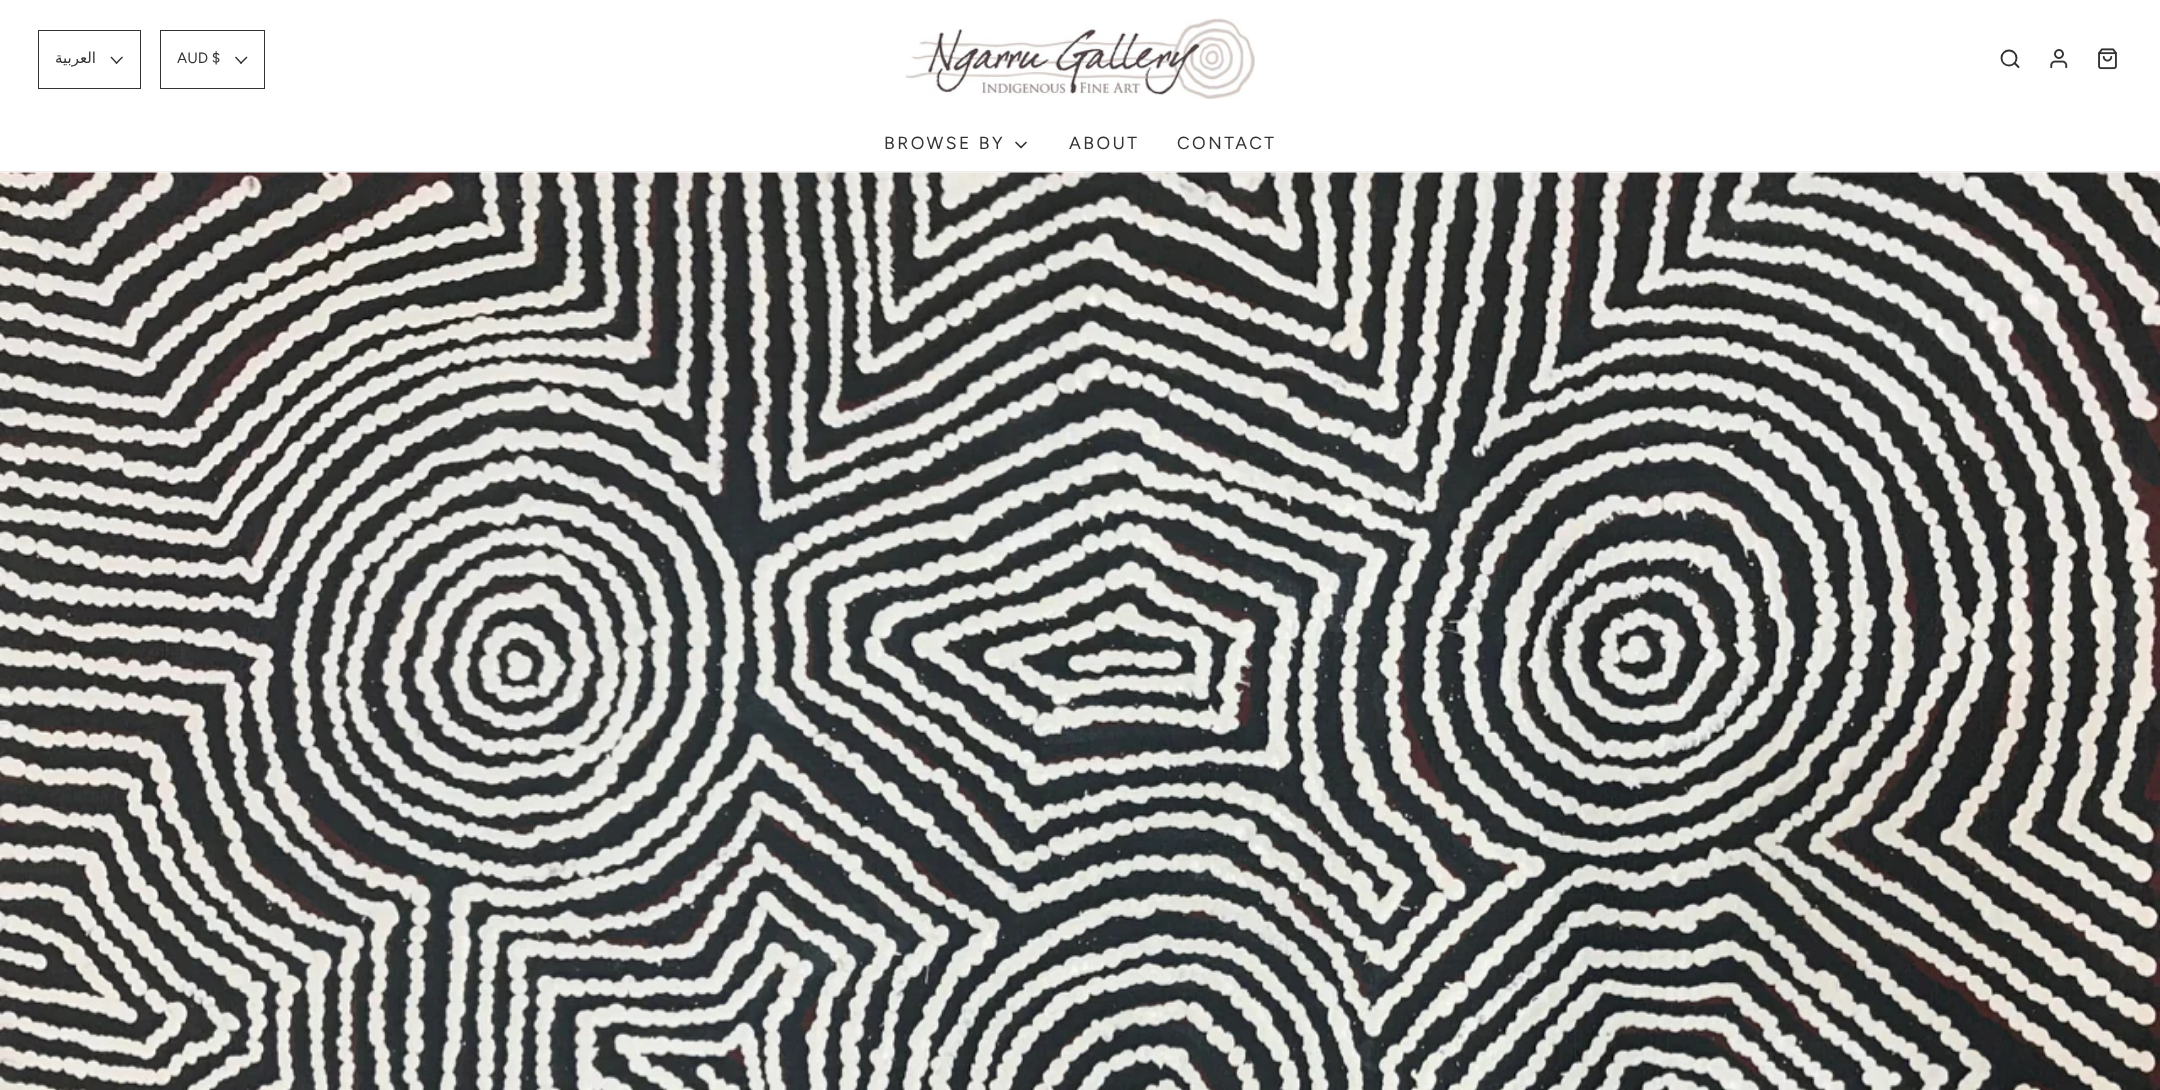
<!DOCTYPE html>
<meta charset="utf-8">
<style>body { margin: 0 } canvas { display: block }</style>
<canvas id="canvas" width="2160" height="1090"></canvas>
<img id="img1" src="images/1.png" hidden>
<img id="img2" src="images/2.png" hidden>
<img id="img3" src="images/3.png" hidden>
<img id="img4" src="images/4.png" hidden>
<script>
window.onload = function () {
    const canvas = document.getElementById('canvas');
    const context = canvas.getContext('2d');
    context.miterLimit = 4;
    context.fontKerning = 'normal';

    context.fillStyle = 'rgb(255, 255, 255)';
    context.fillRect(0, 0, 2160, 1090);
    context.fillStyle = 'rgb(235, 235, 235)';
    context.fillRect(0, 171, 2160, 1);
    context.strokeStyle = 'rgb(51, 51, 51)';
    context.strokeRect(38.5, 30.5, 102, 58);
    context.fillStyle = 'rgb(51, 51, 51)';
    context.beginPath();
    context.moveTo(122, 56.5);
    context.lineTo(123, 57.5);
    context.lineTo(116.5, 64);
    context.lineTo(115.5, 63);
    context.closePath();
    context.fill();
    context.beginPath();
    context.moveTo(111.5, 56.5);
    context.lineTo(117.5, 63);
    context.lineTo(116.5, 64);
    context.lineTo(110.5, 57.5);
    context.closePath();
    context.fill();
    context.strokeRect(160.5, 30.5, 104, 58);
    context.beginPath();
    context.moveTo(246.5, 56.5);
    context.lineTo(247.5, 57.5);
    context.lineTo(241, 64);
    context.lineTo(240, 63);
    context.closePath();
    context.fill();
    context.beginPath();
    context.moveTo(236, 56.5);
    context.lineTo(242, 63);
    context.lineTo(241, 64);
    context.lineTo(235, 57.5);
    context.closePath();
    context.fill();
    context.drawImage(document.getElementById('img1'), 905, 18, 350, 81);
    context.beginPath();
    context.arc(2009, 58, 7.5, 0, 2 * Math.PI);
    context.lineWidth = 1.9;
    context.stroke();
    context.beginPath();
    context.moveTo(2018.5, 67);
    context.lineTo(2014.5, 63);
    context.lineCap = 'round';
    context.lineJoin = 'round';
    context.stroke();
    context.drawImage(document.getElementById('img2'), 2050, 49, 18, 20);
    context.drawImage(document.getElementById('img3'), 2098, 48, 19, 22);
    context.beginPath();
    context.moveTo(1016, 142.5);
    context.lineTo(1021, 147.5);
    context.lineTo(1026, 142.5);
    context.lineWidth = 1.7;
    context.stroke();
    context.drawImage(document.getElementById('img4'), 0, 172, 2160, 918);
    context.direction = 'rtl';
    context.font = '15px DejaVu Sans';
    context.fillText('العربية', 96, 63);
    context.direction = 'ltr';
    context.font = '15px Figtree';
    context.fillText('AUD $', 177, 63);
    context.letterSpacing = '2.5px';
    context.font = '17.5px Figtree';
    context.fillText('BROWSE BY', 884, 149);
    context.fillText('ABOUT', 1069, 149);
    context.fillText('CONTACT', 1177, 149);
};
</script>
